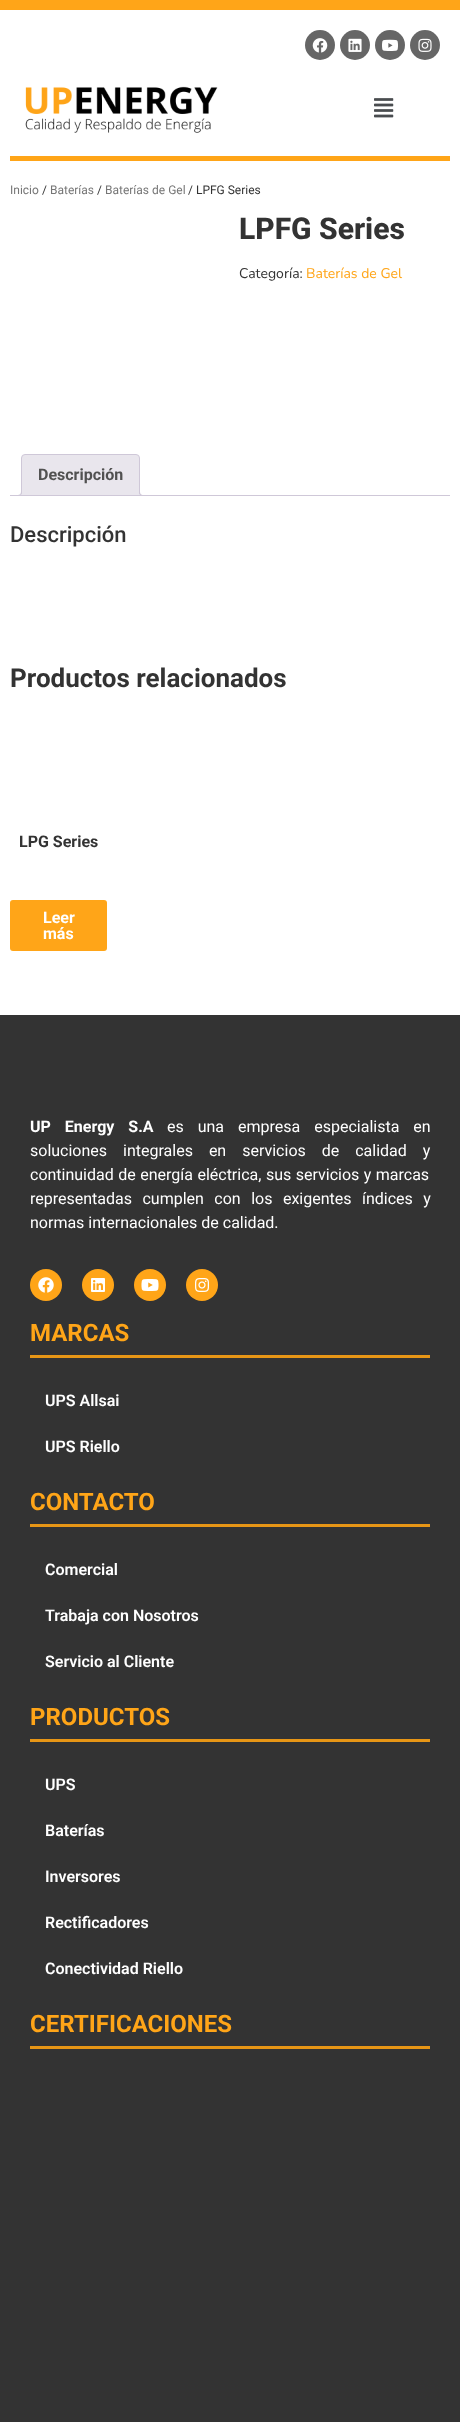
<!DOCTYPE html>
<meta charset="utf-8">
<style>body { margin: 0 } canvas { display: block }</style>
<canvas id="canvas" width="460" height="2422"></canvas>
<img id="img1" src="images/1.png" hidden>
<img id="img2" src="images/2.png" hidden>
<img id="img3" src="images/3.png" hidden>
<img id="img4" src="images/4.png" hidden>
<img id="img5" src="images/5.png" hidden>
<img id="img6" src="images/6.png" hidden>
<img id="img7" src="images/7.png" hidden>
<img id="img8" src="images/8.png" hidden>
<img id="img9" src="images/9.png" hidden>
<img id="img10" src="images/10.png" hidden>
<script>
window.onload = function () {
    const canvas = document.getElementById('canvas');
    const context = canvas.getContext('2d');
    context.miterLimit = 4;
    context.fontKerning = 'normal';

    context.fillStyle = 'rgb(255, 255, 255)';
    context.fillRect(0, 0, 460, 2422);
    context.fillStyle = 'rgb(255, 165, 24)';
    context.fillRect(0, 0, 460, 10);
    context.fillStyle = 'rgb(102, 102, 102)';
    context.beginPath();
    context.arc(320, 45, 15, 0, 2 * Math.PI);
    context.fill();
    context.drawImage(document.getElementById('img1'), 312, 38, 16, 15);
    context.beginPath();
    context.arc(355, 45, 15, 0, 2 * Math.PI);
    context.fill();
    context.drawImage(document.getElementById('img2'), 348, 38, 14, 14);
    context.beginPath();
    context.arc(390, 45, 15, 0, 2 * Math.PI);
    context.fill();
    context.drawImage(document.getElementById('img3'), 382, 39, 16, 12);
    context.beginPath();
    context.arc(425, 45, 15, 0, 2 * Math.PI);
    context.fill();
    context.drawImage(document.getElementById('img4'), 418, 38, 14, 14);
    context.drawImage(document.getElementById('img5'), 25, 86, 193, 47);
    context.drawImage(document.getElementById('img6'), 374, 98, 20, 20);
    context.fillStyle = 'rgb(255, 165, 24)';
    context.fillRect(10, 156, 440, 5);
    context.fillStyle = 'rgb(233, 230, 237)';
    context.beginPath();
    context.roundRect(21.5, 454.5, 118, 41, [3.5, 3.5, 0, 0]);
    context.fill();
    context.strokeStyle = 'rgb(207, 200, 216)';
    context.stroke();
    context.save();
    context.beginPath();
    context.rect(10, 454, 440, 42);
    context.clip();
    context.beginPath();
    context.moveTo(19, 496);
    context.lineTo(19, 498);
    context.bezierCurveTo(22.5, 498, 24, 496.5, 24, 493);
    context.lineTo(22, 493);
    context.bezierCurveTo(21.5, 494.5, 20.5, 495.5, 19, 496);
    context.closePath();
    context.fill();
    context.restore();
    context.fillStyle = 'rgb(207, 200, 216)';
    context.beginPath();
    context.moveTo(17, 491);
    context.lineTo(22, 491);
    context.bezierCurveTo(22, 494.5, 20.5, 496, 17, 496);
    context.closePath();
    context.moveTo(17, 491);
    context.lineTo(21, 491);
    context.bezierCurveTo(21, 494, 20, 495, 17, 495);
    context.closePath();
    context.fill('evenodd');
    context.save();
    context.beginPath();
    context.rect(10, 454, 440, 42);
    context.clip();
    context.fillStyle = 'rgb(233, 230, 237)';
    context.beginPath();
    context.moveTo(137, 493);
    context.bezierCurveTo(137, 496.5, 138.5, 498, 142, 498);
    context.lineTo(142, 496);
    context.bezierCurveTo(140.5, 495.5, 139.5, 494.5, 139, 493);
    context.closePath();
    context.fill();
    context.restore();
    context.beginPath();
    context.moveTo(139, 491);
    context.lineTo(144, 491);
    context.lineTo(144, 496);
    context.bezierCurveTo(141.5, 496, 139, 495, 139, 492);
    context.closePath();
    context.moveTo(140, 491);
    context.lineTo(144, 491);
    context.lineTo(144, 495);
    context.bezierCurveTo(142, 495, 140, 494.5, 140, 492);
    context.closePath();
    context.fill('evenodd');
    context.fillRect(10, 495, 440, 1);
    context.fillStyle = 'rgb(255, 165, 24)';
    context.beginPath();
    context.roundRect(10, 900, 97, 51, 3);
    context.fill();
    context.fillStyle = 'rgb(51, 51, 51)';
    context.fillRect(0, 1015, 460, 1407);
    context.fillStyle = 'rgb(255, 165, 24)';
    context.beginPath();
    context.arc(46, 1285, 16, 0, 2 * Math.PI);
    context.fill();
    context.drawImage(document.getElementById('img7'), 38, 1277, 16, 16);
    context.beginPath();
    context.arc(98, 1285, 16, 0, 2 * Math.PI);
    context.fill();
    context.drawImage(document.getElementById('img8'), 91, 1278, 14, 14);
    context.beginPath();
    context.arc(150, 1285, 16, 0, 2 * Math.PI);
    context.fill();
    context.drawImage(document.getElementById('img9'), 141, 1279, 18, 12);
    context.beginPath();
    context.arc(202, 1285, 16, 0, 2 * Math.PI);
    context.fill();
    context.drawImage(document.getElementById('img10'), 195, 1278, 14, 14);
    context.fillStyle = 'rgb(231, 150, 22)';
    context.fillRect(30, 1355, 400, 3);
    context.fillRect(30, 1524, 400, 3);
    context.fillRect(30, 1739, 400, 3);
    context.fillRect(30, 2046, 400, 3);
    context.font = '12px Roboto';
    context.fillStyle = 'rgb(118, 118, 118)';
    context.fillText('Inicio', 10, 194);
    context.fillStyle = 'rgb(51, 51, 51)';
    context.fillText('/', 42, 194);
    context.fillStyle = 'rgb(118, 118, 118)';
    context.fillText('Baterías', 50, 194);
    context.fillStyle = 'rgb(51, 51, 51)';
    context.fillText('/', 97, 194);
    context.fillStyle = 'rgb(118, 118, 118)';
    context.fillText('Baterías de Gel', 105, 194);
    context.fillStyle = 'rgb(51, 51, 51)';
    context.fillText('/ LPFG Series', 188, 194);
    context.font = '800 30px Roboto';
    context.fillText('LPFG Series', 239, 239);
    context.font = '14px Nunito';
    context.fillText('Categoría:', 239, 278);
    context.fillStyle = 'rgb(255, 165, 24)';
    context.fillText('Baterías de Gel', 306, 278);
    context.font = 'bold 16px Roboto';
    context.fillStyle = 'rgb(81, 81, 81)';
    context.fillText('Descripción', 38, 480);
    context.font = '500 22px Roboto';
    context.fillStyle = 'rgb(51, 51, 51)';
    context.fillText('Descripción', 10, 542);
    context.font = 'bold 26px Roboto';
    context.fillText('Productos relacionados', 10, 687);
    context.font = 'bold 16px Roboto';
    context.fillText('LPG Series', 19, 847);
    context.fillStyle = 'rgb(255, 255, 255)';
    context.fillText('Leer', 43, 923);
    context.fillText('más', 43, 939);
    context.wordSpacing = '10px';
    context.fillText('UP Energy S.A', 30, 1132);
    context.font = '16px Roboto';
    context.fillText('es una empresa especialista en', 167, 1132);
    context.wordSpacing = '12px';
    context.fillText('soluciones integrales en servicios de calidad y', 30, 1156);
    context.wordSpacing = '0.5px';
    context.fillText('continuidad de energía eléctrica, sus servicios y marcas', 30, 1180);
    context.wordSpacing = '6.5px';
    context.fillText('representadas cumplen con los exigentes índices y', 30, 1204);
    context.wordSpacing = '0px';
    context.fillText('normas internacionales de calidad.', 30, 1228);
    context.font = 'bold 24px Roboto';
    context.fillStyle = 'rgb(255, 165, 24)';
    context.fillText('MARCAS', 30, 1341);
    context.font = '600 16px Roboto';
    context.fillStyle = 'rgb(255, 255, 255)';
    context.fillText('UPS Allsai', 45, 1406);
    context.fillText('UPS Riello', 45, 1452);
    context.font = 'bold 24px Roboto';
    context.fillStyle = 'rgb(255, 165, 24)';
    context.fillText('CONTACTO', 30, 1510);
    context.font = '600 16px Roboto';
    context.fillStyle = 'rgb(255, 255, 255)';
    context.fillText('Comercial', 45, 1575);
    context.fillText('Trabaja con Nosotros', 45, 1621);
    context.fillText('Servicio al Cliente', 45, 1667);
    context.font = 'bold 24px Roboto';
    context.fillStyle = 'rgb(255, 165, 24)';
    context.fillText('PRODUCTOS', 30, 1725);
    context.font = '600 16px Roboto';
    context.fillStyle = 'rgb(255, 255, 255)';
    context.fillText('UPS', 45, 1790);
    context.fillText('Baterías', 45, 1836);
    context.fillText('Inversores', 45, 1882);
    context.fillText('Rectificadores', 45, 1928);
    context.fillText('Conectividad Riello', 45, 1974);
    context.font = 'bold 24px Roboto';
    context.fillStyle = 'rgb(255, 165, 24)';
    context.fillText('CERTIFICACIONES', 30, 2032);
};
</script>
